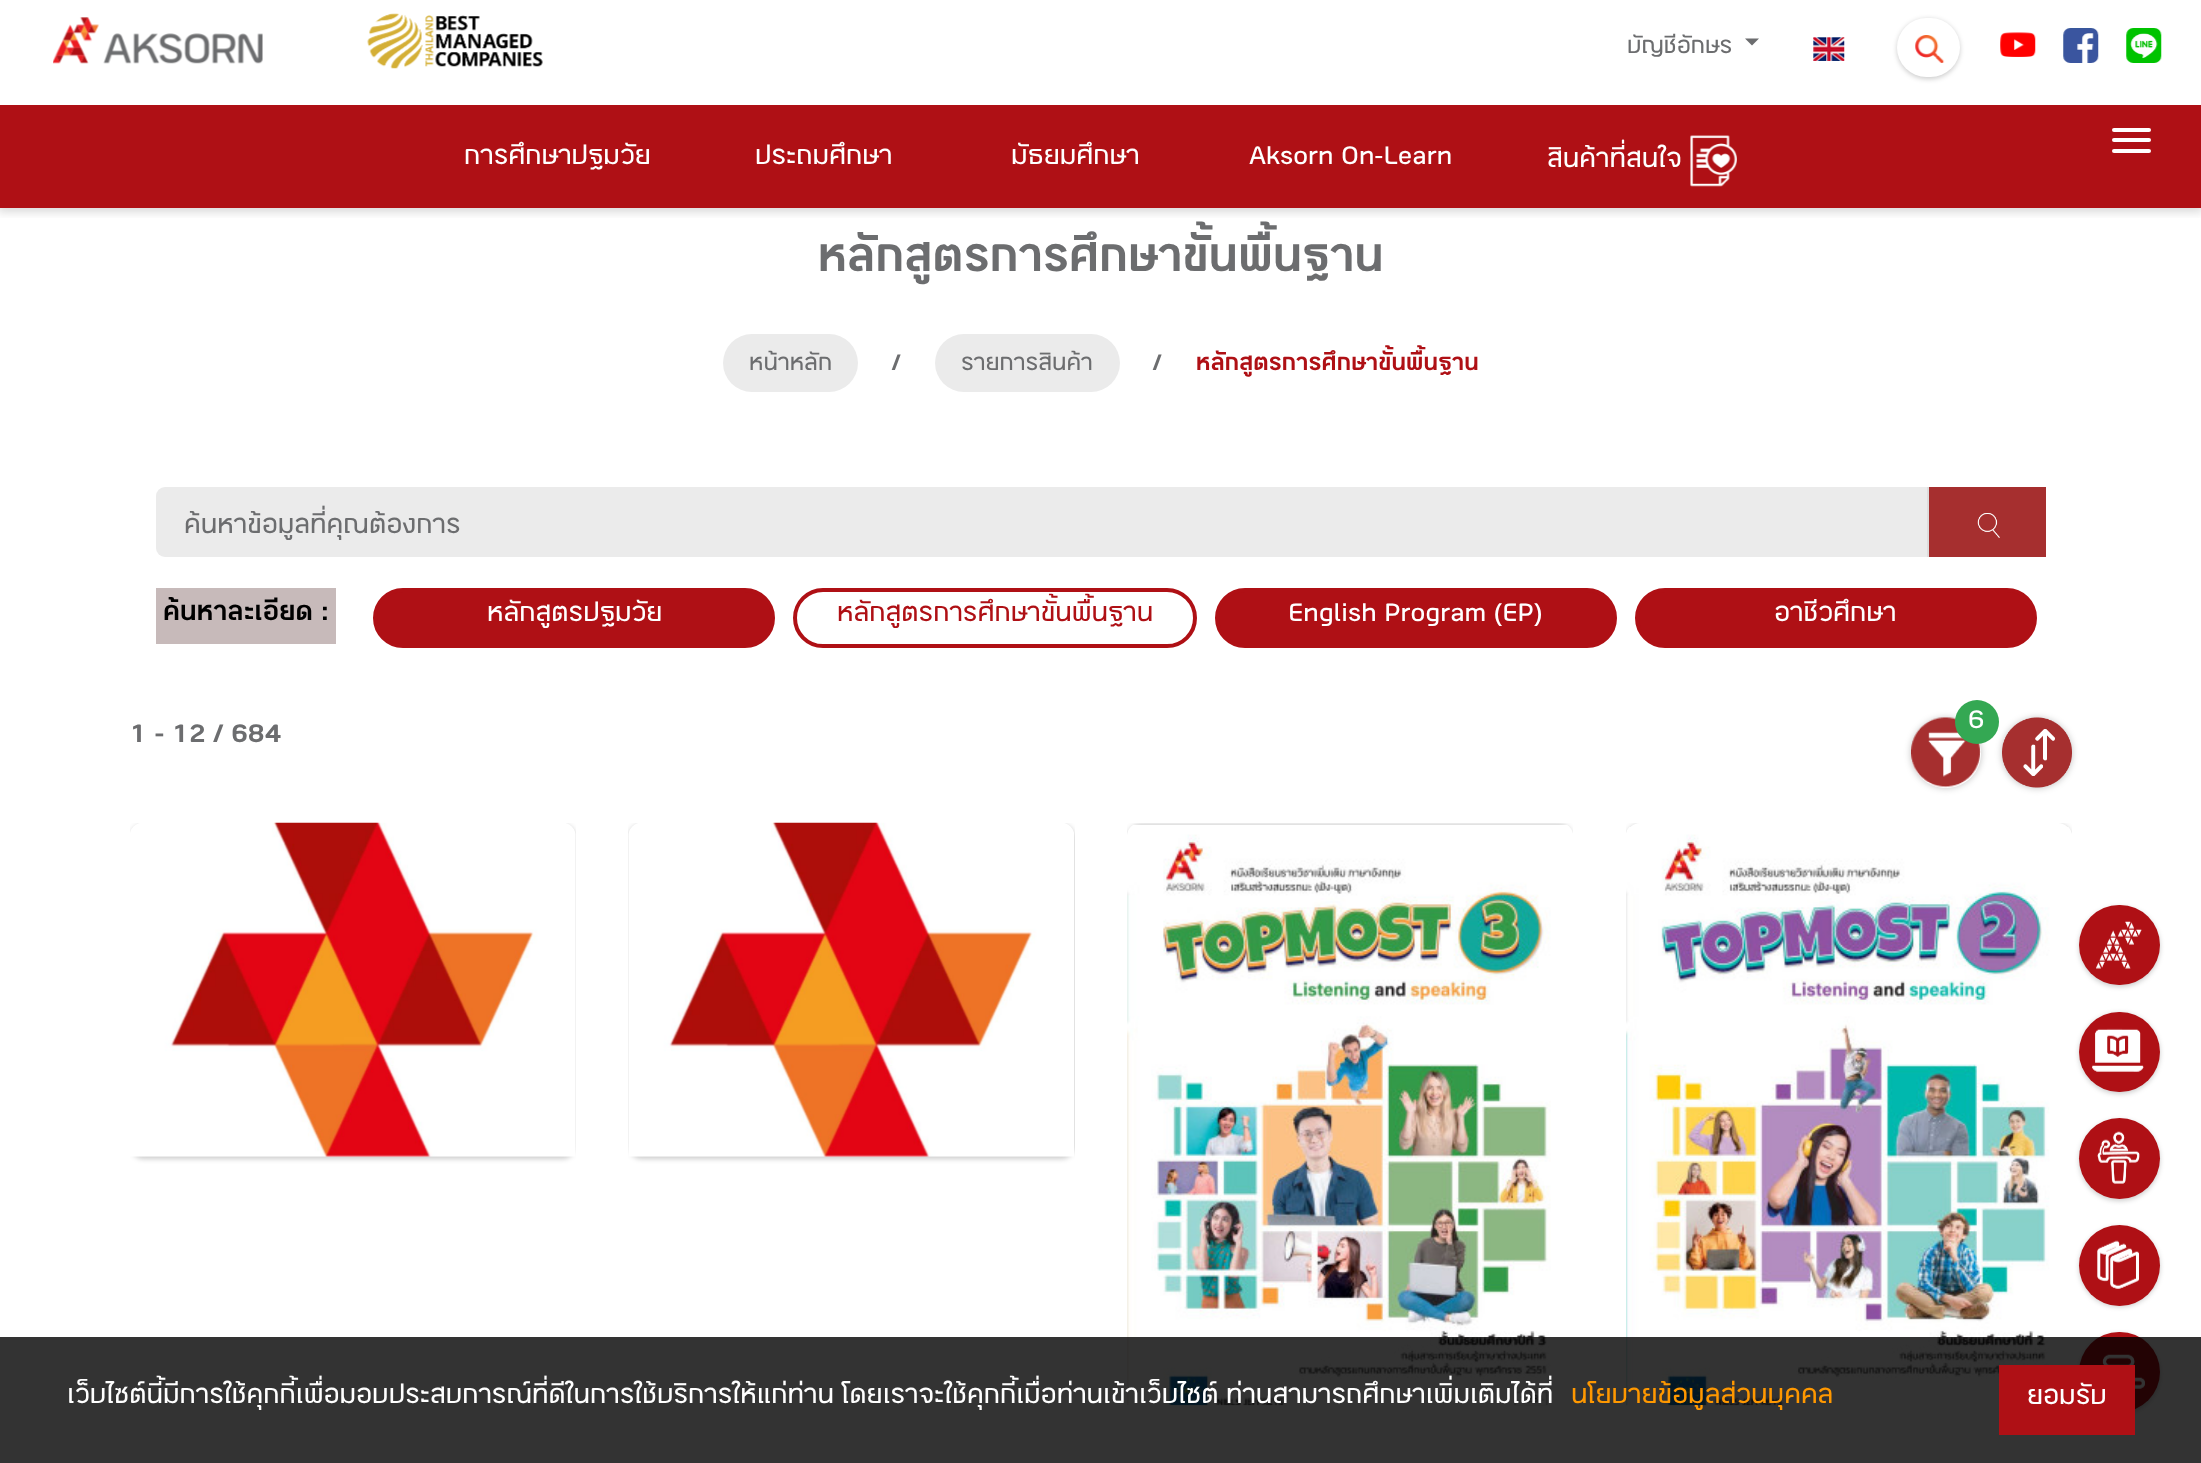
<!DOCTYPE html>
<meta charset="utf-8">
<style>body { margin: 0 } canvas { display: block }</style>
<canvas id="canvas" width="2201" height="1463"></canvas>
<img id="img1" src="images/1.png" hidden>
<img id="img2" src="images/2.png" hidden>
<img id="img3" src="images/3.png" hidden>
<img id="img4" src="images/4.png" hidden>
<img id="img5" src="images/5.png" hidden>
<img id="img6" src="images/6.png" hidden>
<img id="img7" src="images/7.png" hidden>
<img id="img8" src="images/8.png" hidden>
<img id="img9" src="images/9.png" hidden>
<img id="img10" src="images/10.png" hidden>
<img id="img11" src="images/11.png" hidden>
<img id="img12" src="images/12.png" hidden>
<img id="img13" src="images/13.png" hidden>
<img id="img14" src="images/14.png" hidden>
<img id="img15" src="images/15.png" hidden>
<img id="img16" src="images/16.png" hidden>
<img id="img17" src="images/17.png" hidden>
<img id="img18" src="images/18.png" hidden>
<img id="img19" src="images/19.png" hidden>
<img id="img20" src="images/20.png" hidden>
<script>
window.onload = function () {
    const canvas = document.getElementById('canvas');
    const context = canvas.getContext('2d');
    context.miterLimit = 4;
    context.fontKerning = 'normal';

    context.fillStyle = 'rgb(255, 255, 255)';
    context.fillRect(0, 0, 2201, 1463);
    context.save();
    context.beginPath();
    context.rect(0, 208, 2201, 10);
    context.clip();
    context.fillStyle = 'rgba(0, 0, 0, 0.15)';
    context.filter = 'blur(5px)';
    context.beginPath();
    context.rect(-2, 0, 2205, 212);
    context.fill();
    context.filter = 'none';
    context.restore();
    context.drawImage(document.getElementById('img1'), 53, 17, 210, 47);
    context.drawImage(document.getElementById('img2'), 367, 13, 176, 56);
    context.fillStyle = 'rgb(108, 109, 111)';
    context.beginPath();
    context.moveTo(1745, 38.5);
    context.lineTo(1759, 38.5);
    context.lineTo(1752, 45.5);
    context.closePath();
    context.fill();
    context.drawImage(document.getElementById('img3'), 1813, 37, 32, 24);
    context.fillStyle = 'rgba(0, 0, 0, 0.2)';
    context.filter = 'blur(2.5px)';
    context.beginPath();
    context.roundRect(1897, 19, 63, 60, 30);
    context.fill();
    context.filter = 'none';
    context.fillStyle = 'rgb(255, 255, 255)';
    context.beginPath();
    context.roundRect(1897, 18, 63, 59, 29.5);
    context.fill();
    context.drawImage(document.getElementById('img4'), 1915, 35, 30, 28);
    context.drawImage(document.getElementById('img5'), 2000, 32, 36, 25);
    context.drawImage(document.getElementById('img6'), 2063, 28, 36, 35);
    context.drawImage(document.getElementById('img7'), 2126, 28, 36, 35);
    context.fillStyle = 'rgb(175, 16, 21)';
    context.fillRect(0, 105, 2201, 103);
    context.drawImage(document.getElementById('img8'), 1690, 135, 47, 52);
    context.fillStyle = 'rgb(255, 255, 255)';
    context.beginPath();
    context.roundRect(2112, 128, 39, 4, 2);
    context.fill();
    context.beginPath();
    context.roundRect(2112, 138, 39, 4, 2);
    context.fill();
    context.beginPath();
    context.roundRect(2112, 149, 39, 4, 2);
    context.fill();
    context.fillStyle = 'rgb(235, 235, 235)';
    context.beginPath();
    context.roundRect(723, 334, 135, 58, 29);
    context.fill();
    context.beginPath();
    context.roundRect(935, 334, 185, 58, 29);
    context.fill();
    context.beginPath();
    context.roundRect(156, 487, 1890, 70, 9);
    context.fill();
    context.fillStyle = 'rgb(166, 47, 47)';
    context.fillRect(1929, 487, 117, 70);
    context.fillStyle = 'rgb(221, 221, 221)';
    context.fillRect(1927, 487, 2, 70);
    context.drawImage(document.getElementById('img9'), 1977, 513, 23, 25);
    context.fillStyle = 'rgb(199, 186, 186)';
    context.fillRect(156, 588, 180, 56);
    context.fillStyle = 'rgb(175, 16, 21)';
    context.beginPath();
    context.roundRect(375, 590, 398, 56, 28);
    context.fill();
    context.strokeStyle = 'rgb(175, 16, 21)';
    context.lineWidth = 4;
    context.stroke();
    context.beginPath();
    context.roundRect(795, 590, 400, 56, 28);
    context.stroke();
    context.beginPath();
    context.roundRect(1217, 590, 398, 56, 28);
    context.fill();
    context.stroke();
    context.beginPath();
    context.roundRect(1637, 590, 398, 56, 28);
    context.fill();
    context.stroke();
    context.save();
    context.beginPath();
    context.moveTo(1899, 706);
    context.lineTo(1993, 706);
    context.lineTo(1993, 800);
    context.lineTo(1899, 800);
    context.closePath();
    context.moveTo(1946, 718);
    context.bezierCurveTo(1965.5, 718, 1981, 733.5, 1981, 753);
    context.bezierCurveTo(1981, 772.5, 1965.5, 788, 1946, 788);
    context.bezierCurveTo(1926.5, 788, 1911, 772.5, 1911, 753);
    context.bezierCurveTo(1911, 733.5, 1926.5, 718, 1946, 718);
    context.closePath();
    context.clip('evenodd');
    context.fillStyle = 'rgba(0, 0, 0, 0.25)';
    context.filter = 'blur(3.5px)';
    context.beginPath();
    context.roundRect(1911, 718, 70, 70, 35);
    context.fill();
    context.filter = 'none';
    context.restore();
    context.drawImage(document.getElementById('img10'), 1911, 717, 70, 71);
    context.fillStyle = 'rgb(52, 168, 83)';
    context.beginPath();
    context.arc(1977, 722, 22, 0, 2 * Math.PI);
    context.fill();
    context.fillStyle = 'rgba(0, 0, 0, 0.25)';
    context.filter = 'blur(3.5px)';
    context.beginPath();
    context.roundRect(2002, 718, 70, 70, 35);
    context.fill();
    context.filter = 'none';
    context.drawImage(document.getElementById('img11'), 2002, 717, 70, 71);
    context.save();
    context.beginPath();
    context.rect(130, 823, 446, 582);
    context.clip();
    context.fillStyle = 'rgba(0, 0, 0, 0.2)';
    context.filter = 'blur(2.5px)';
    context.beginPath();
    context.roundRect(130, 824, 446, 335, 14);
    context.fill();
    context.filter = 'none';
    context.restore();
    context.drawImage(document.getElementById('img12'), 130, 822, 446, 335);
    context.save();
    context.beginPath();
    context.rect(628, 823, 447, 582);
    context.clip();
    context.fillStyle = 'rgba(0, 0, 0, 0.2)';
    context.filter = 'blur(2.5px)';
    context.beginPath();
    context.roundRect(628, 824, 447, 335, 14);
    context.fill();
    context.filter = 'none';
    context.restore();
    context.drawImage(document.getElementById('img13'), 628, 822, 446, 335);
    context.save();
    context.beginPath();
    context.rect(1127, 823, 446, 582);
    context.clip();
    context.fillStyle = 'rgba(0, 0, 0, 0.2)';
    context.filter = 'blur(2.5px)';
    context.beginPath();
    context.roundRect(1127, 824, 446, 606, 14);
    context.fill();
    context.filter = 'none';
    context.restore();
    context.drawImage(document.getElementById('img14'), 1127, 825, 446, 581);
    context.save();
    context.beginPath();
    context.rect(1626, 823, 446, 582);
    context.clip();
    context.beginPath();
    context.moveTo(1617, 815);
    context.lineTo(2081, 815);
    context.lineTo(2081, 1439);
    context.lineTo(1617, 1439);
    context.closePath();
    context.moveTo(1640, 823);
    context.lineTo(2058, 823);
    context.bezierCurveTo(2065.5, 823, 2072, 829.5, 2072, 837);
    context.lineTo(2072, 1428);
    context.lineTo(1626, 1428);
    context.lineTo(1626, 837);
    context.bezierCurveTo(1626, 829.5, 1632.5, 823, 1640, 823);
    context.closePath();
    context.clip('evenodd');
    context.fillStyle = 'rgba(0, 0, 0, 0.2)';
    context.filter = 'blur(2.5px)';
    context.beginPath();
    context.roundRect(1626, 824, 446, 606, 14);
    context.fill();
    context.filter = 'none';
    context.restore();
    context.drawImage(document.getElementById('img15'), 1626, 827, 446, 579);
    context.fillStyle = 'rgba(0, 0, 0, 0.2)';
    context.filter = 'blur(2.5px)';
    context.beginPath();
    context.roundRect(2079, 907, 81, 80, 40);
    context.fill();
    context.filter = 'none';
    context.fillStyle = 'rgb(175, 16, 21)';
    context.beginPath();
    context.roundRect(2079, 905, 81, 80, 40);
    context.fill();
    context.drawImage(document.getElementById('img16'), 2096, 921, 46, 48);
    context.fillStyle = 'rgba(0, 0, 0, 0.2)';
    context.filter = 'blur(2.5px)';
    context.beginPath();
    context.roundRect(2079, 1013, 81, 81, 40.5);
    context.fill();
    context.filter = 'none';
    context.fillStyle = 'rgb(175, 16, 21)';
    context.beginPath();
    context.roundRect(2079, 1012, 81, 80, 40);
    context.fill();
    context.drawImage(document.getElementById('img17'), 2092, 1028, 52, 44);
    context.fillStyle = 'rgba(0, 0, 0, 0.2)';
    context.filter = 'blur(2.5px)';
    context.beginPath();
    context.roundRect(2079, 1120, 81, 81, 40.5);
    context.fill();
    context.filter = 'none';
    context.fillStyle = 'rgb(175, 16, 21)';
    context.beginPath();
    context.arc(2119.5, 1158.5, 40.5, 0, 2 * Math.PI);
    context.fill();
    context.drawImage(document.getElementById('img18'), 2097, 1131, 43, 53);
    context.fillStyle = 'rgba(0, 0, 0, 0.2)';
    context.filter = 'blur(2.5px)';
    context.beginPath();
    context.roundRect(2079, 1227, 81, 80, 40);
    context.fill();
    context.filter = 'none';
    context.fillStyle = 'rgb(175, 16, 21)';
    context.beginPath();
    context.arc(2119.5, 1265.5, 40.5, 0, 2 * Math.PI);
    context.fill();
    context.drawImage(document.getElementById('img19'), 2097, 1240, 42, 49);
    context.fillStyle = 'rgba(0, 0, 0, 0.2)';
    context.filter = 'blur(2.5px)';
    context.beginPath();
    context.roundRect(2079, 1334, 81, 80, 40);
    context.fill();
    context.filter = 'none';
    context.fillStyle = 'rgb(175, 16, 21)';
    context.beginPath();
    context.roundRect(2079, 1332, 81, 80, 40);
    context.fill();
    context.drawImage(document.getElementById('img20'), 2102, 1354, 43, 35);
    context.fillStyle = 'rgba(0, 0, 0, 0.8)';
    context.fillRect(0, 1337, 2201, 126);
    context.fillStyle = 'rgb(175, 16, 21)';
    context.fillRect(1999, 1365, 136, 70);
    context.font = '24.5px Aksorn';
    context.fillStyle = 'rgb(108, 109, 111)';
    context.fillText('บัญชีอักษร', 1627, 53);
    context.font = '28px Aksorn';
    context.fillStyle = 'rgb(255, 255, 255)';
    context.fillText('การศึกษาปฐมวัย', 464, 164);
    context.fillText('ประถมศึกษา', 755, 164);
    context.fillText('มัธยมศึกษา', 1011, 164);
    context.fillText('Aksorn On-Learn', 1249, 164);
    context.fillText('สินค้าที่สนใจ', 1547, 167);
    context.font = 'bold 49px Aksorn';
    context.fillStyle = 'rgb(108, 109, 111)';
    context.fillText('หลักสูตรการศึกษาขั้นพื้นฐาน', 818, 271);
    context.font = '24.5px Aksorn';
    context.fillText('หน้าหลัก', 749, 370);
    context.font = 'bold 24.5px Aksorn';
    context.fillText('/', 892, 370);
    context.font = '24.5px Aksorn';
    context.fillText('รายการสินค้า', 961, 370);
    context.font = 'bold 24.5px Aksorn';
    context.fillText('/', 1153, 370);
    context.fillStyle = 'rgb(175, 16, 21)';
    context.fillText('หลักสูตรการศึกษาขั้นพื้นฐาน', 1196, 370);
    context.save();
    context.beginPath();
    context.rect(184, 504, 1799, 53);
    context.clip();
    context.font = '28px Aksorn';
    context.fillStyle = 'rgb(108, 109, 111)';
    context.fillText('ค้นหาข้อมูลที่คุณต้องการ', 184, 533);
    context.restore();
    context.font = 'bold 28px Aksorn';
    context.fillStyle = 'rgb(0, 0, 0)';
    context.fillText('ค้นหาละเอียด :', 163, 620);
    context.font = '28px Aksorn';
    context.fillStyle = 'rgb(255, 255, 255)';
    context.fillText('หลักสูตรปฐมวัย', 487, 621);
    context.fillStyle = 'rgb(175, 16, 21)';
    context.fillText('หลักสูตรการศึกษาขั้นพื้นฐาน', 837, 621);
    context.fillStyle = 'rgb(255, 255, 255)';
    context.fillText('English Program (EP)', 1288, 621);
    context.fillText('อาชีวศึกษา', 1774, 621);
    context.fillText('6', 1968, 728);
    context.font = 'bold 28px Aksorn';
    context.fillStyle = 'rgb(108, 109, 111)';
    context.fillText('1 - 12 / 684', 130, 742);
    context.font = '28px Aksorn';
    context.fillStyle = 'rgb(255, 255, 255)';
    context.fillText('เว็บไซต์นี้มีการใช้คุกกี้เพื่อมอบประสบการณ์ที่ดีในการใช้บริการให้แก่ท่าน โดยเราจะใช้คุกกี้เมื่อท่านเข้าเว็บไซต์ ท่านสามารถศึกษาเพิ่มเติมได้ที่', 67, 1403);
    context.fillStyle = 'rgb(255, 152, 0)';
    context.fillText('นโยบายข้อมูลส่วนบุคคล', 1571, 1403);
    context.fillStyle = 'rgb(255, 255, 255)';
    context.fillText('ยอมรับ', 2027, 1404);
};
</script>
